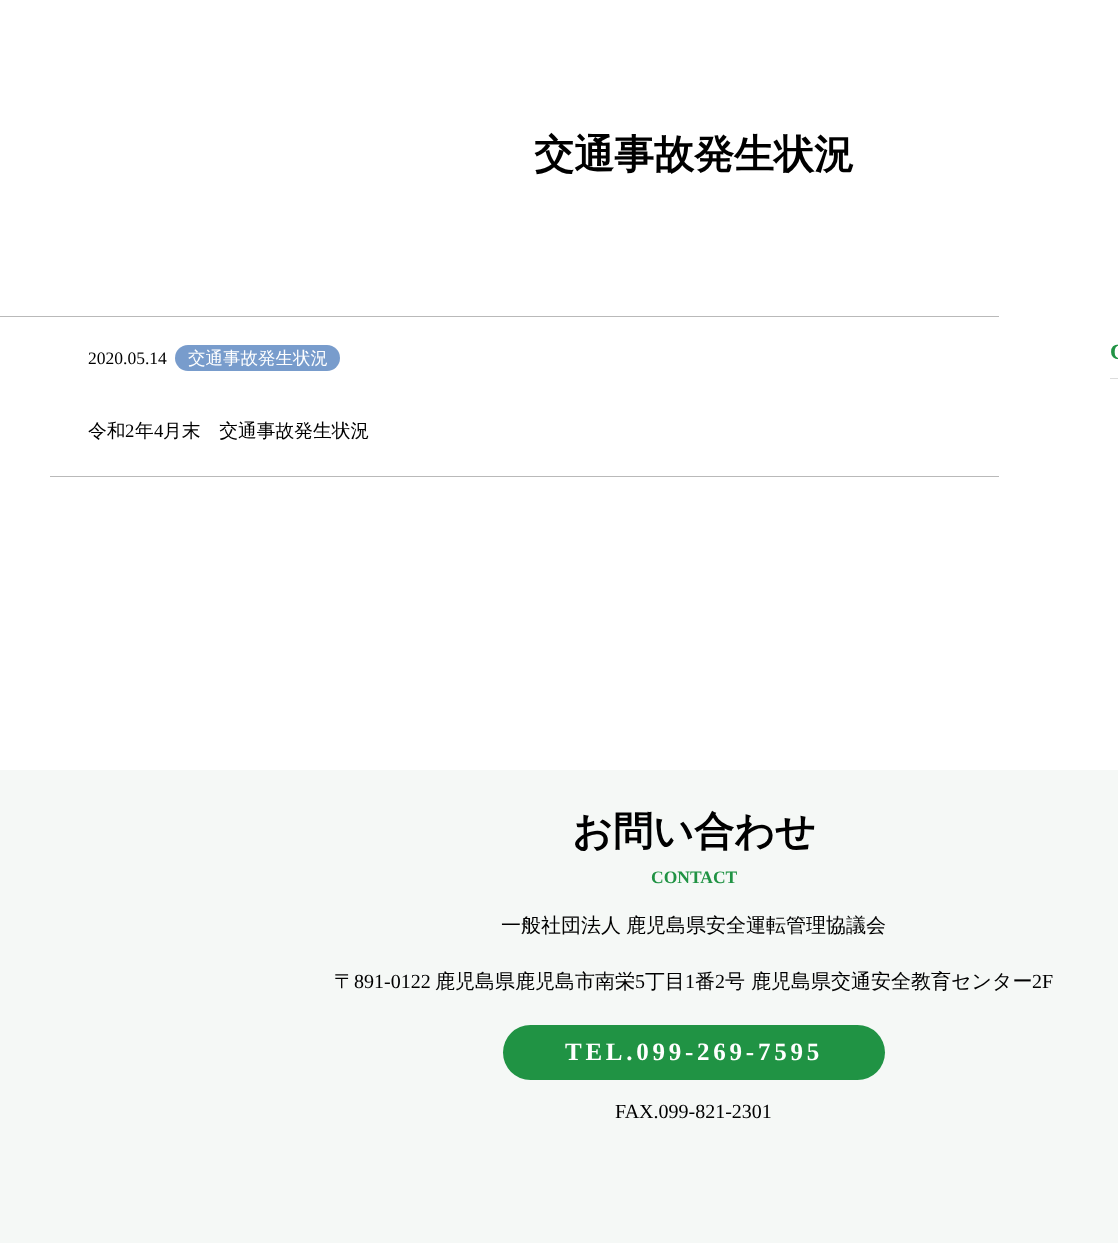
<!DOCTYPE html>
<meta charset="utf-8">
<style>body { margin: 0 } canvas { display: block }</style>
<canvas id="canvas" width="1118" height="1252"></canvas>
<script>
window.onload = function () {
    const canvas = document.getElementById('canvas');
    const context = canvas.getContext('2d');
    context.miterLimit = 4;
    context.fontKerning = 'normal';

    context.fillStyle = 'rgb(255, 255, 255)';
    context.fillRect(0, 0, 1118, 1252);
    context.fillStyle = 'rgb(185, 185, 185)';
    context.fillRect(0, 316, 999, 1);
    context.fillRect(50, 476, 949, 1);
    context.fillStyle = 'rgb(120, 156, 204)';
    context.beginPath();
    context.roundRect(175, 345, 165, 26, 13);
    context.fill();
    context.fillStyle = 'rgb(220, 220, 220)';
    context.fillRect(1110, 378, 8, 1);
    context.fillStyle = 'rgb(245, 248, 246)';
    context.fillRect(0, 770, 1118, 473);
    context.fillStyle = 'rgb(32, 147, 68)';
    context.beginPath();
    context.roundRect(503, 1025, 382, 55, 27.5);
    context.fill();
    context.font = 'bold 40px WenQuanYi Zen Hei';
    context.fillStyle = 'rgb(0, 0, 0)';
    context.fillText('交通事故発生状況', 534, 168);
    context.font = '17.5px Liberation Serif';
    context.fillText('2020.05.14', 88, 364);
    context.font = '500 17.5px WenQuanYi Zen Hei';
    context.fillStyle = 'rgb(255, 255, 255)';
    context.fillText('交通事故発生状況', 188, 364);
    context.font = '500 18.75px WenQuanYi Zen Hei';
    context.fillStyle = 'rgb(0, 0, 0)';
    context.fillText('令和', 88, 437);
    context.font = '18.75px Liberation Serif';
    context.fillText('2', 125, 437);
    context.font = '500 18.75px WenQuanYi Zen Hei';
    context.fillText('年', 135, 437);
    context.font = '18.75px Liberation Serif';
    context.fillText('4', 154, 437);
    context.font = '500 18.75px WenQuanYi Zen Hei';
    context.fillText('月末　交通事故発生状況', 163, 437);
    context.letterSpacing = '3px';
    context.font = 'bold 22px Liberation Serif';
    context.fillStyle = 'rgb(32, 147, 68)';
    context.fillText('C', 1110, 359);
    context.letterSpacing = '0px';
    context.font = 'bold 40px WenQuanYi Zen Hei';
    context.fillStyle = 'rgb(0, 0, 0)';
    context.fillText('お問い合わせ', 572, 845);
    context.font = 'bold 17.5px Liberation Serif';
    context.fillStyle = 'rgb(32, 147, 68)';
    context.fillText('CONTACT', 651, 883);
    context.wordSpacing = '-1px';
    context.font = '500 20px WenQuanYi Zen Hei';
    context.fillStyle = 'rgb(0, 0, 0)';
    context.fillText('一般社団法人 鹿児島県安全運転管理協議会', 501, 932);
    context.wordSpacing = '0px';
    context.fillText('〒', 334, 988);
    context.font = '20px Liberation Serif';
    context.fillText('891-0122', 354, 988);
    context.font = '500 20px WenQuanYi Zen Hei';
    context.fillText('鹿児島県鹿児島市南栄', 435, 988);
    context.font = '20px Liberation Serif';
    context.fillText('5', 635, 988);
    context.font = '500 20px WenQuanYi Zen Hei';
    context.fillText('丁目', 645, 988);
    context.font = '20px Liberation Serif';
    context.fillText('1', 685, 988);
    context.font = '500 20px WenQuanYi Zen Hei';
    context.fillText('番', 695, 988);
    context.font = '20px Liberation Serif';
    context.fillText('2', 715, 988);
    context.font = '500 20px WenQuanYi Zen Hei';
    context.fillText('号 鹿児島県交通安全教育センター', 725, 988);
    context.font = '20px Liberation Serif';
    context.fillText('2F', 1032, 988);
    context.letterSpacing = '3.75px';
    context.font = 'bold 25px Liberation Serif';
    context.fillStyle = 'rgb(255, 255, 255)';
    context.fillText('TEL.099-269-7595', 565, 1060);
    context.letterSpacing = '0px';
    context.font = '20px Liberation Serif';
    context.fillStyle = 'rgb(0, 0, 0)';
    context.fillText('FAX.099-821-2301', 615, 1118);
};
</script>
